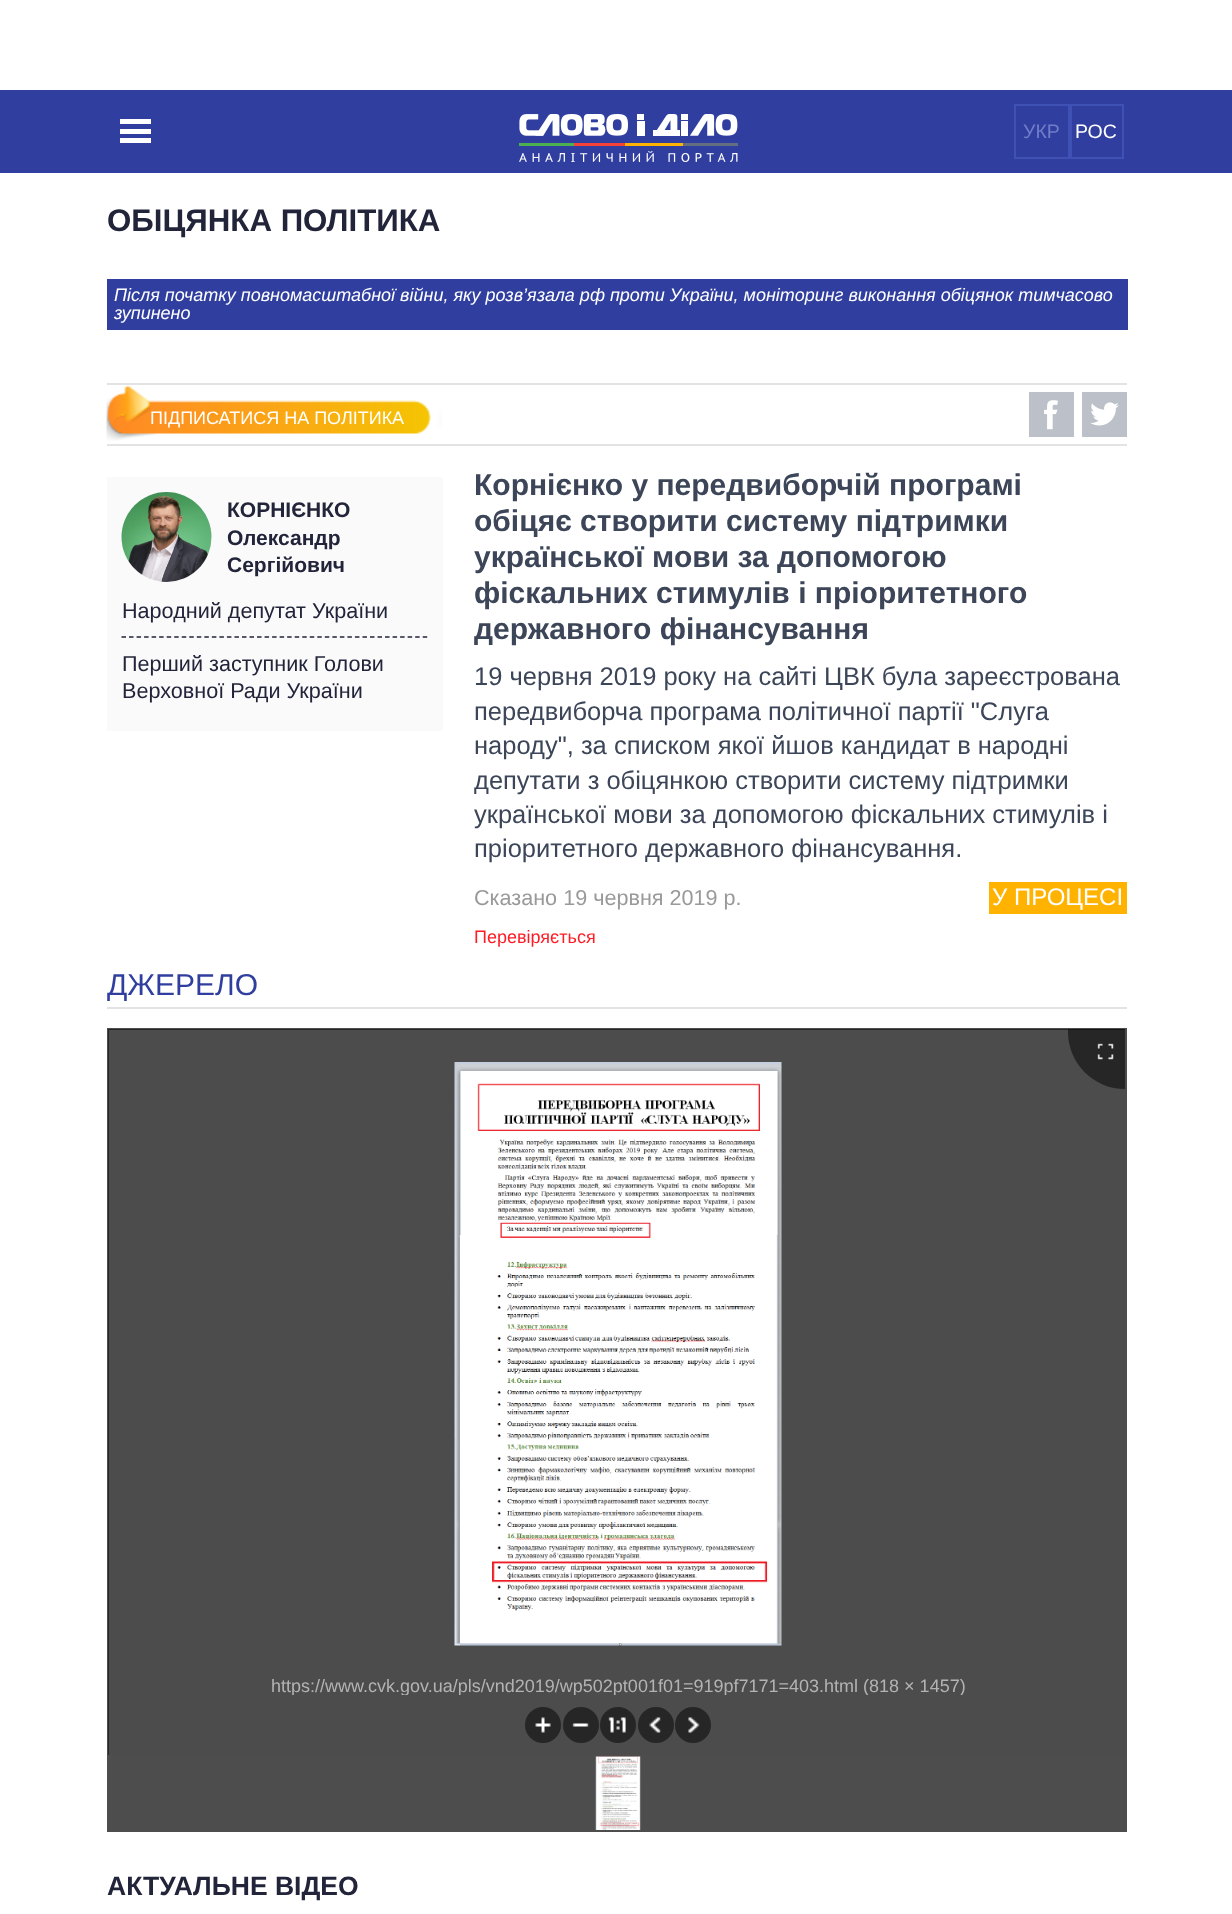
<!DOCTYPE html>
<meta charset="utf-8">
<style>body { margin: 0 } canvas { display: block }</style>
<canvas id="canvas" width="1232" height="1914"></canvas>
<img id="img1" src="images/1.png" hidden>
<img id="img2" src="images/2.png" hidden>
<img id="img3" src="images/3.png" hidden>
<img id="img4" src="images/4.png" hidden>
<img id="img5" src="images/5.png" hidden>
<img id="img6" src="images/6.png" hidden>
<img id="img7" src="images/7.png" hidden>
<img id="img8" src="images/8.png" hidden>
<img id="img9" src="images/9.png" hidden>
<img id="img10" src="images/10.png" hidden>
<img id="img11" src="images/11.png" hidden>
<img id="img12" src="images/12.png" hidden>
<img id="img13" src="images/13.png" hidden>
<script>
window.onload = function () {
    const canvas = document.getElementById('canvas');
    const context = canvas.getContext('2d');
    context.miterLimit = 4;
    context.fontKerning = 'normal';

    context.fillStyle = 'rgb(255, 255, 255)';
    context.fillRect(0, 0, 1232, 1914);
    context.fillStyle = 'rgb(48, 63, 159)';
    context.fillRect(0, 90, 1232, 83);
    context.fillStyle = 'rgb(255, 255, 255)';
    context.fillRect(120, 138, 31, 5);
    context.fillRect(120, 129, 31, 5);
    context.fillRect(120, 119, 31, 5);
    context.drawImage(document.getElementById('img1'), 519, 114, 219, 48);
    context.strokeStyle = 'rgb(63, 81, 181)';
    context.lineWidth = 2;
    context.strokeRect(1015, 105, 54, 53);
    context.strokeRect(1071, 105, 52, 53);
    context.fillStyle = 'rgb(48, 63, 159)';
    context.fillRect(107, 279, 1021, 51);
    context.fillStyle = 'rgb(227, 227, 227)';
    context.fillRect(107, 383, 1020, 2);
    context.fillRect(107, 444, 1020, 2);
    context.drawImage(document.getElementById('img2'), 106, 385, 336, 56);
    context.fillStyle = 'rgb(188, 193, 201)';
    context.fillRect(1029, 392, 45, 45);
    context.drawImage(document.getElementById('img3'), 1044, 400, 14, 30);
    context.fillRect(1082, 392, 45, 45);
    context.drawImage(document.getElementById('img4'), 1090, 402, 29, 24);
    context.fillStyle = 'rgb(250, 250, 251)';
    context.fillRect(107, 477, 336, 254);
    context.drawImage(document.getElementById('img5'), 121, 492, 91, 90);
    context.beginPath();
    context.moveTo(121.5, 637);
    context.lineTo(427.5, 637);
    context.strokeStyle = 'rgb(34, 36, 58)';
    context.lineWidth = 1.5;
    context.setLineDash([4.5, 3.03]);
    context.stroke();
    context.fillStyle = 'rgb(255, 179, 0)';
    context.fillRect(989, 882, 138, 32);
    context.fillStyle = 'rgb(227, 227, 227)';
    context.fillRect(107, 1007, 1020, 2);
    context.fillStyle = 'rgb(153, 153, 153)';
    context.fillRect(109, 1030, 1016, 725);
    context.strokeStyle = 'rgb(77, 77, 77)';
    context.lineWidth = 2;
    context.setLineDash([]);
    context.strokeRect(108, 1029, 1018, 802);
    context.fillStyle = 'rgba(0, 0, 0, 0.5)';
    context.fillRect(108, 1029, 1017, 726);
    context.drawImage(document.getElementById('img6'), 454, 1062, 328, 584);
    context.beginPath();
    context.roundRect(1068, 1029, 57, 60, [0, 0, 0, 60]);
    context.fill();
    context.drawImage(document.getElementById('img7'), 1097, 1043, 17, 17);
    context.fillStyle = 'rgb(38, 38, 38)';
    context.beginPath();
    context.arc(543, 1725, 18, 0, 2 * Math.PI);
    context.fill();
    context.drawImage(document.getElementById('img8'), 535, 1717, 16, 16);
    context.beginPath();
    context.arc(581, 1725, 18, 0, 2 * Math.PI);
    context.fill();
    context.drawImage(document.getElementById('img9'), 572, 1723, 17, 4);
    context.beginPath();
    context.arc(618, 1725, 18, 0, 2 * Math.PI);
    context.fill();
    context.drawImage(document.getElementById('img10'), 608, 1717, 18, 16);
    context.beginPath();
    context.arc(656, 1725, 18, 0, 2 * Math.PI);
    context.fill();
    context.drawImage(document.getElementById('img11'), 649, 1717, 12, 16);
    context.beginPath();
    context.arc(693, 1725, 18, 0, 2 * Math.PI);
    context.fill();
    context.drawImage(document.getElementById('img12'), 688, 1717, 12, 16);
    context.fillStyle = 'rgb(77, 77, 77)';
    context.fillRect(109, 1755, 1016, 75);
    context.drawImage(document.getElementById('img13'), 595, 1756, 46, 74);
    context.font = '19.5px Liberation Sans';
    context.fillStyle = 'rgb(113, 125, 200)';
    context.fillText('УКР', 1023, 138);
    context.fillStyle = 'rgb(255, 255, 255)';
    context.fillText('РОС', 1075, 138);
    context.font = 'bold 31.25px Liberation Sans';
    context.fillStyle = 'rgb(34, 36, 58)';
    context.fillText('ОБІЦЯНКА ПОЛІТИКА', 107, 231);
    context.font = 'italic 18px Liberation Sans';
    context.fillStyle = 'rgb(255, 255, 255)';
    context.fillText('Після початку повномасштабної війни, яку розв’язала рф проти України, моніторинг виконання обіцянок тимчасово', 114, 301);
    context.fillText('зупинено', 114, 319);
    context.font = '18px Liberation Sans';
    context.fillText('ПІДПИСАТИСЯ НА ПОЛІТИКА', 150, 424);
    context.font = 'bold 21px Liberation Sans';
    context.fillStyle = 'rgb(34, 36, 58)';
    context.fillText('КОРНІЄНКО', 227, 517);
    context.fillText('Олександр', 227, 545);
    context.fillText('Сергійович', 227, 572);
    context.font = '21.6px Liberation Sans';
    context.fillText('Народний депутат України', 122, 618);
    context.fillText('Перший заступник Голови', 122, 671);
    context.fillText('Верховної Ради України', 122, 698);
    context.font = 'bold 30px Liberation Sans';
    context.fillStyle = 'rgb(60, 70, 88)';
    context.fillText('Корнієнко у передвиборчій програмі', 474, 495);
    context.fillText('обіцяє створити систему підтримки', 474, 531);
    context.fillText('української мови за допомогою', 474, 567);
    context.fillText('фіскальних стимулів і пріоритетного', 474, 603);
    context.fillText('державного фінансування', 474, 639);
    context.font = '25.5px Liberation Sans';
    context.fillText('19 червня 2019 року на сайті ЦВК була зареєстрована', 474, 685);
    context.fillText('передвиборча програма політичної партії "Слуга', 474, 720);
    context.fillText('народу", за списком якої йшов кандидат в народні', 474, 754);
    context.fillText('депутати з обіцянкою створити систему підтримки', 474, 789);
    context.fillText('української мови за допомогою фіскальних стимулів і', 474, 823);
    context.fillText('пріоритетного державного фінансування.', 474, 857);
    context.font = '21.6px Liberation Sans';
    context.fillStyle = 'rgb(153, 153, 153)';
    context.fillText('Сказано 19 червня 2019 р.', 474, 905);
    context.font = '24px Liberation Sans';
    context.fillStyle = 'rgb(255, 255, 255)';
    context.fillText('У ПРОЦЕСІ', 992, 905);
    context.font = '18px Liberation Sans';
    context.fillStyle = 'rgb(255, 27, 37)';
    context.fillText('Перевіряється', 474, 943);
    context.font = '30px Liberation Sans';
    context.fillStyle = 'rgb(48, 63, 159)';
    context.fillText('ДЖЕРЕЛО', 107, 995);
    context.save();
    context.beginPath();
    context.rect(270, 1677, 696, 18);
    context.clip();
    context.font = '18px Liberation Sans';
    context.fillStyle = 'rgb(179, 179, 179)';
    context.fillText('https://www.cvk.gov.ua/pls/vnd2019/wp502pt001f01=919pf7171=403.html (818 × 1457)', 271, 1692);
    context.restore();
    context.font = 'bold 26.5px Liberation Sans';
    context.fillStyle = 'rgb(34, 36, 58)';
    context.fillText('АКТУАЛЬНЕ ВІДЕО', 107, 1895);
};
</script>
